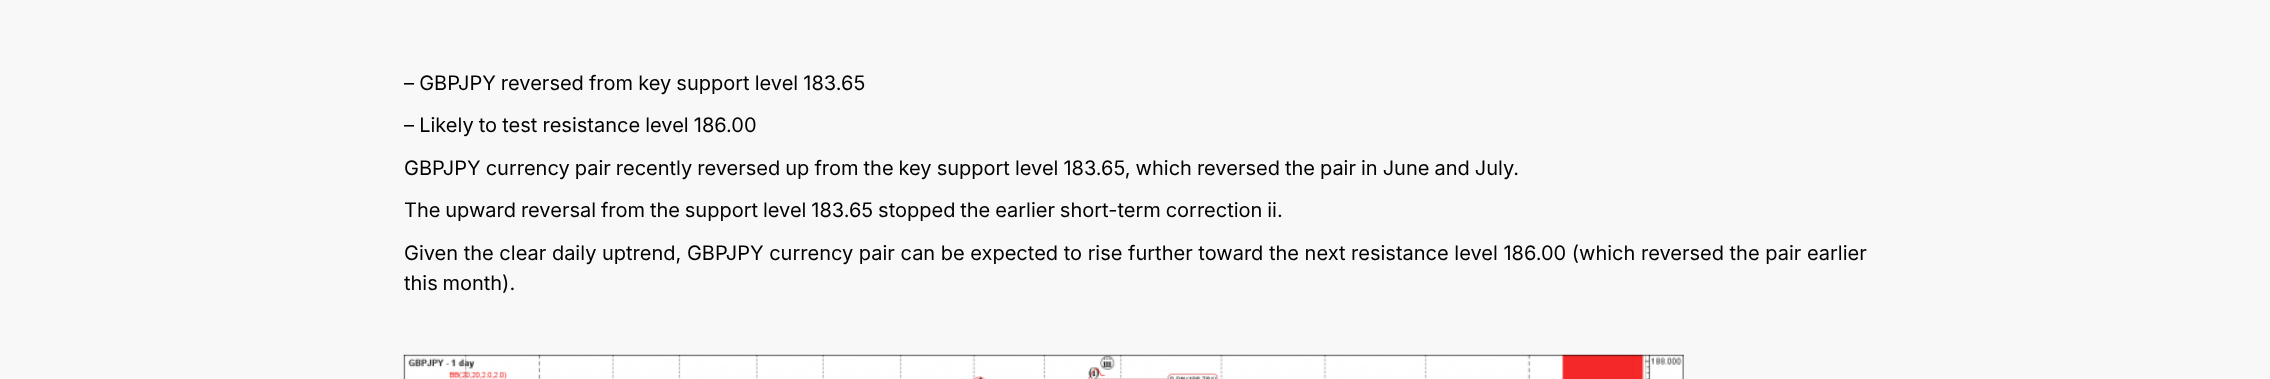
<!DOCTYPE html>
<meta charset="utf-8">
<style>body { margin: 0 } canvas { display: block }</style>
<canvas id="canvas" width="2270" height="379"></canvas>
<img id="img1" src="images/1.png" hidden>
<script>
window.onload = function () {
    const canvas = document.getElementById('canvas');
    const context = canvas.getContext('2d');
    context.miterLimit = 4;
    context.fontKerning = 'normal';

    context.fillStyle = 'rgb(249, 248, 248)';
    context.fillRect(0, 0, 2270, 379);
    context.drawImage(document.getElementById('img1'), 403, 354, 1281, 25);
    context.wordSpacing = '-0.5px';
    context.font = '20px Inter';
    context.fillStyle = 'rgb(0, 0, 0)';
    context.fillText('– GBPJPY reversed from key support level 183.65', 404, 90);
    context.fillText('– Likely to test resistance level 186.00', 404, 132);
    context.wordSpacing = '-0.6px';
    context.fillText('GBPJPY currency pair recently reversed up from the key support level 183.65, which reversed the pair in June and July.', 404, 175);
    context.wordSpacing = '-0.75px';
    context.fillText('The upward reversal from the support level 183.65 stopped the earlier short-term correction ii.', 404, 217);
    context.wordSpacing = '0px';
    context.fillText('Given the clear daily uptrend, GBPJPY currency pair can be expected to rise further toward the next resistance level 186.00 (which reversed the pair earlier', 404, 260);
    context.wordSpacing = '-1px';
    context.fillText('this month).', 404, 290);
};
</script>
